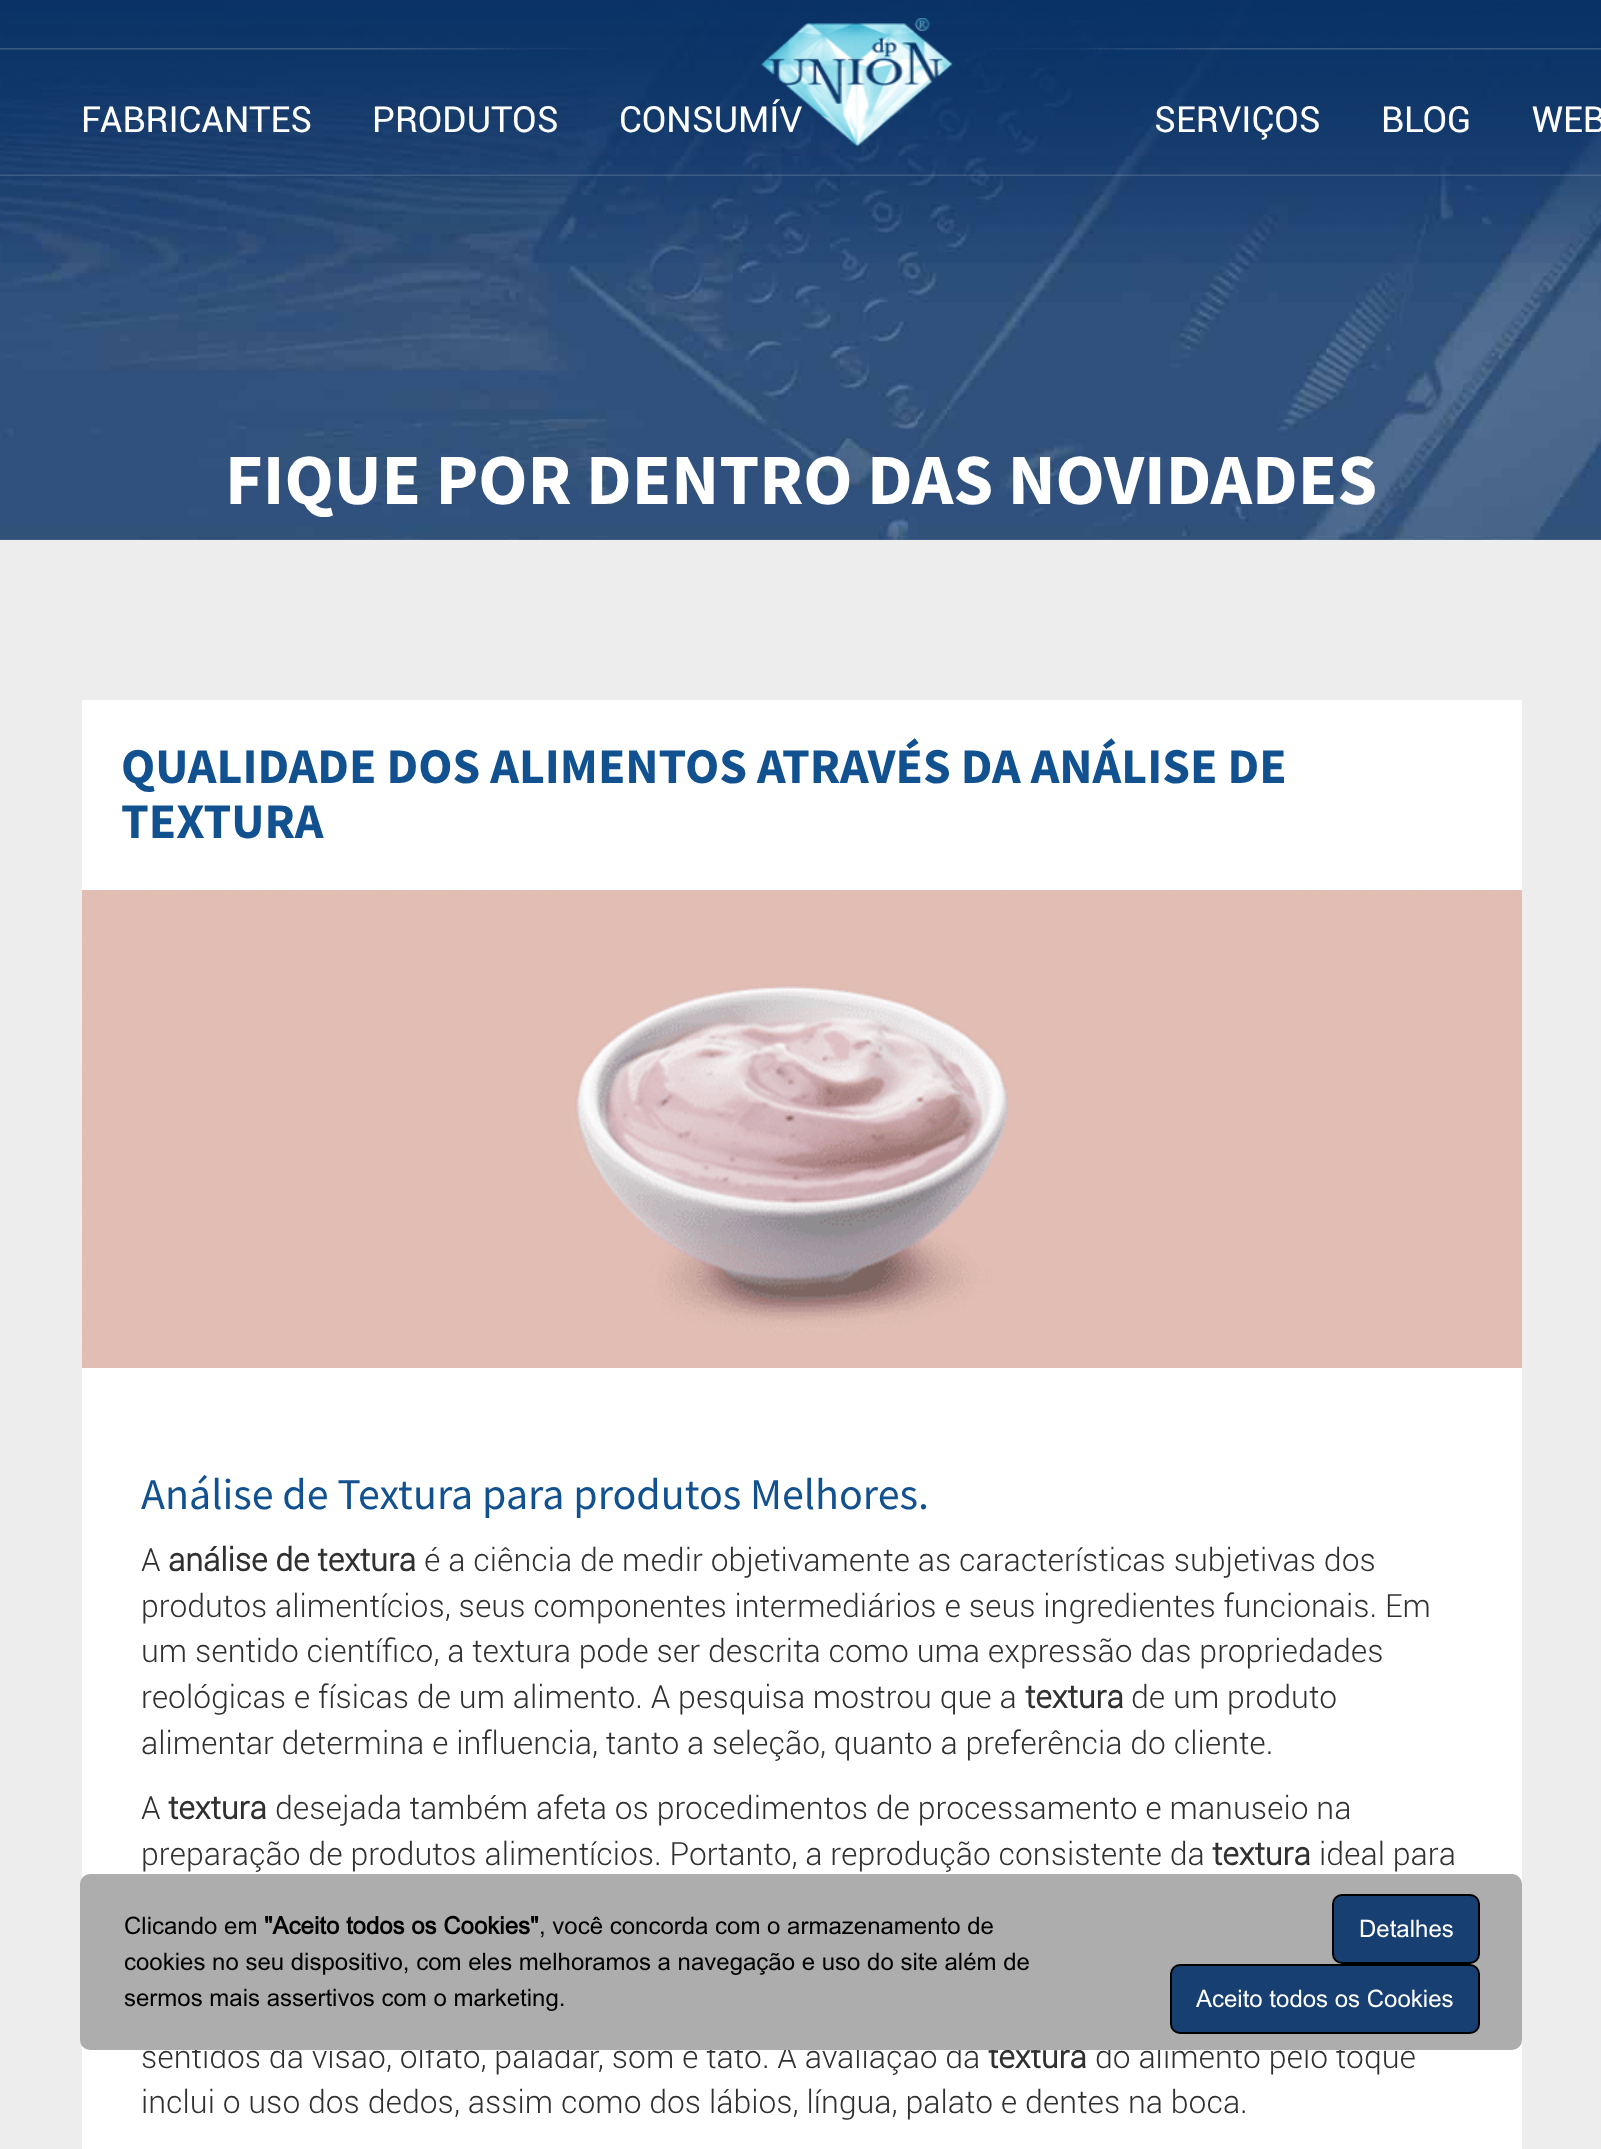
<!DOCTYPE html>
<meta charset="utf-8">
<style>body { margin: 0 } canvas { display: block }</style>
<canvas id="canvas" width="1601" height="2149"></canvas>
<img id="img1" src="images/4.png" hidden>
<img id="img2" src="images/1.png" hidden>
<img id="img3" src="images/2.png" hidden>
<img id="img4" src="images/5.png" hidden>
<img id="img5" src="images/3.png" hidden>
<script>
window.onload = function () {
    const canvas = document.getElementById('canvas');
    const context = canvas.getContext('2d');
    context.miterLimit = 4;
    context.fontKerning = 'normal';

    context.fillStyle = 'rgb(255, 255, 255)';
    context.fillRect(0, 0, 1601, 2149);
    context.drawImage(document.getElementById('img1'), 0, 0, 1601, 540);
    context.drawImage(document.getElementById('img2'), 0, 0, 1601, 263);
    context.drawImage(document.getElementById('img3'), 0, 48, 1601, 128);
    context.fillStyle = 'rgb(237, 237, 237)';
    context.fillRect(0, 540, 1601, 1609);
    context.fillStyle = 'rgb(255, 255, 255)';
    context.fillRect(82, 700, 1440, 1449);
    context.drawImage(document.getElementById('img4'), 82, 890, 1440, 478);
    context.font = '36px Roboto';
    context.fillText('FABRICANTES', 81, 132);
    context.fillText('PRODUTOS', 372, 132);
    context.fillText('CONSUMÍV', 619, 132);
    context.drawImage(document.getElementById('img5'), 761, 18, 192, 128);
    context.fillText('SERVIÇOS', 1154, 132);
    context.fillText('BLOG', 1381, 132);
    context.fillText('WEB', 1532, 132);
    context.font = 'bold 72px Source Sans Pro';
    context.fillText('FIQUE POR DENTRO DAS NOVIDADES', 225, 504);
    context.font = 'bold 50px Source Sans Pro';
    context.fillStyle = 'rgb(18, 81, 144)';
    context.fillText('QUALIDADE DOS ALIMENTOS ATRAVÉS DA ANÁLISE DE', 121, 783);
    context.fillText('TEXTURA', 121, 838);
    context.font = '44px Source Sans Pro';
    context.fillText('Análise de Textura para produtos Melhores.', 141, 1509);
    context.font = '300 32px Roboto';
    context.fillStyle = 'rgb(48, 48, 48)';
    context.fillText('A', 141, 1571);
    context.font = 'bold 32px Roboto';
    context.fillText('análise de textura', 168, 1571);
    context.font = '300 32px Roboto';
    context.fillText('é a ciência de medir objetivamente as características subjetivas dos', 424, 1571);
    context.fillText('produtos alimentícios, seus componentes intermediários e seus ingredientes funcionais. Em', 141, 1617);
    context.fillText('um sentido científico, a textura pode ser descrita como uma expressão das propriedades', 141, 1662);
    context.fillText('reológicas e físicas de um alimento. A pesquisa mostrou que a', 141, 1708);
    context.font = 'bold 32px Roboto';
    context.fillText('textura', 1025, 1708);
    context.font = '300 32px Roboto';
    context.fillText('de um produto', 1131, 1708);
    context.fillText('alimentar determina e influencia, tanto a seleção, quanto a preferência do cliente.', 141, 1754);
    context.fillText('A', 141, 1819);
    context.font = 'bold 32px Roboto';
    context.fillText('textura', 168, 1819);
    context.font = '300 32px Roboto';
    context.fillText('desejada também afeta os procedimentos de processamento e manuseio na', 275, 1819);
    context.fillText('preparação de produtos alimentícios. Portanto, a reprodução consistente da', 141, 1865);
    context.font = 'bold 32px Roboto';
    context.fillText('textura', 1212, 1865);
    context.font = '300 32px Roboto';
    context.fillText('ideal para', 1319, 1865);
    context.fillText('sentidos da visão, olfato, paladar, som e tato. A avaliação da', 141, 2068);
    context.font = 'bold 32px Roboto';
    context.fillText('textura', 988, 2068);
    context.font = '300 32px Roboto';
    context.fillText('do alimento pelo toque', 1095, 2068);
    context.fillText('inclui o uso dos dedos, assim como dos lábios, língua, palato e dentes na boca.', 141, 2113);
    context.fillStyle = 'rgb(173, 173, 173)';
    context.beginPath();
    context.roundRect(82, 1876, 1438, 172, 8);
    context.fill();
    context.strokeStyle = 'rgb(173, 173, 173)';
    context.lineWidth = 4;
    context.stroke();
    context.font = '24px Arial';
    context.fillStyle = 'rgb(0, 0, 0)';
    context.fillText('Clicando em', 124, 1934);
    context.font = 'bold 24px Arial';
    context.fillText('"Aceito todos os Cookies"', 264, 1934);
    context.font = '24px Arial';
    context.fillText(', você concorda com o armazenamento de', 539, 1934);
    context.fillText('cookies no seu dispositivo, com eles melhoramos a navegação e uso do site além de', 124, 1970);
    context.fillText('sermos mais assertivos com o marketing.', 124, 2006);
    context.fillStyle = 'rgb(24, 63, 114)';
    context.beginPath();
    context.roundRect(1333, 1895, 146, 68, 9);
    context.fill();
    context.strokeStyle = 'rgb(0, 0, 0)';
    context.lineWidth = 2;
    context.stroke();
    context.fillStyle = 'rgb(255, 255, 255)';
    context.fillText('Detalhes', 1359, 1937);
    context.fillStyle = 'rgb(24, 63, 114)';
    context.beginPath();
    context.roundRect(1171, 1965, 308, 68, 9);
    context.fill();
    context.stroke();
    context.fillStyle = 'rgb(255, 255, 255)';
    context.fillText('Aceito todos os Cookies', 1196, 2007);
};
</script>
